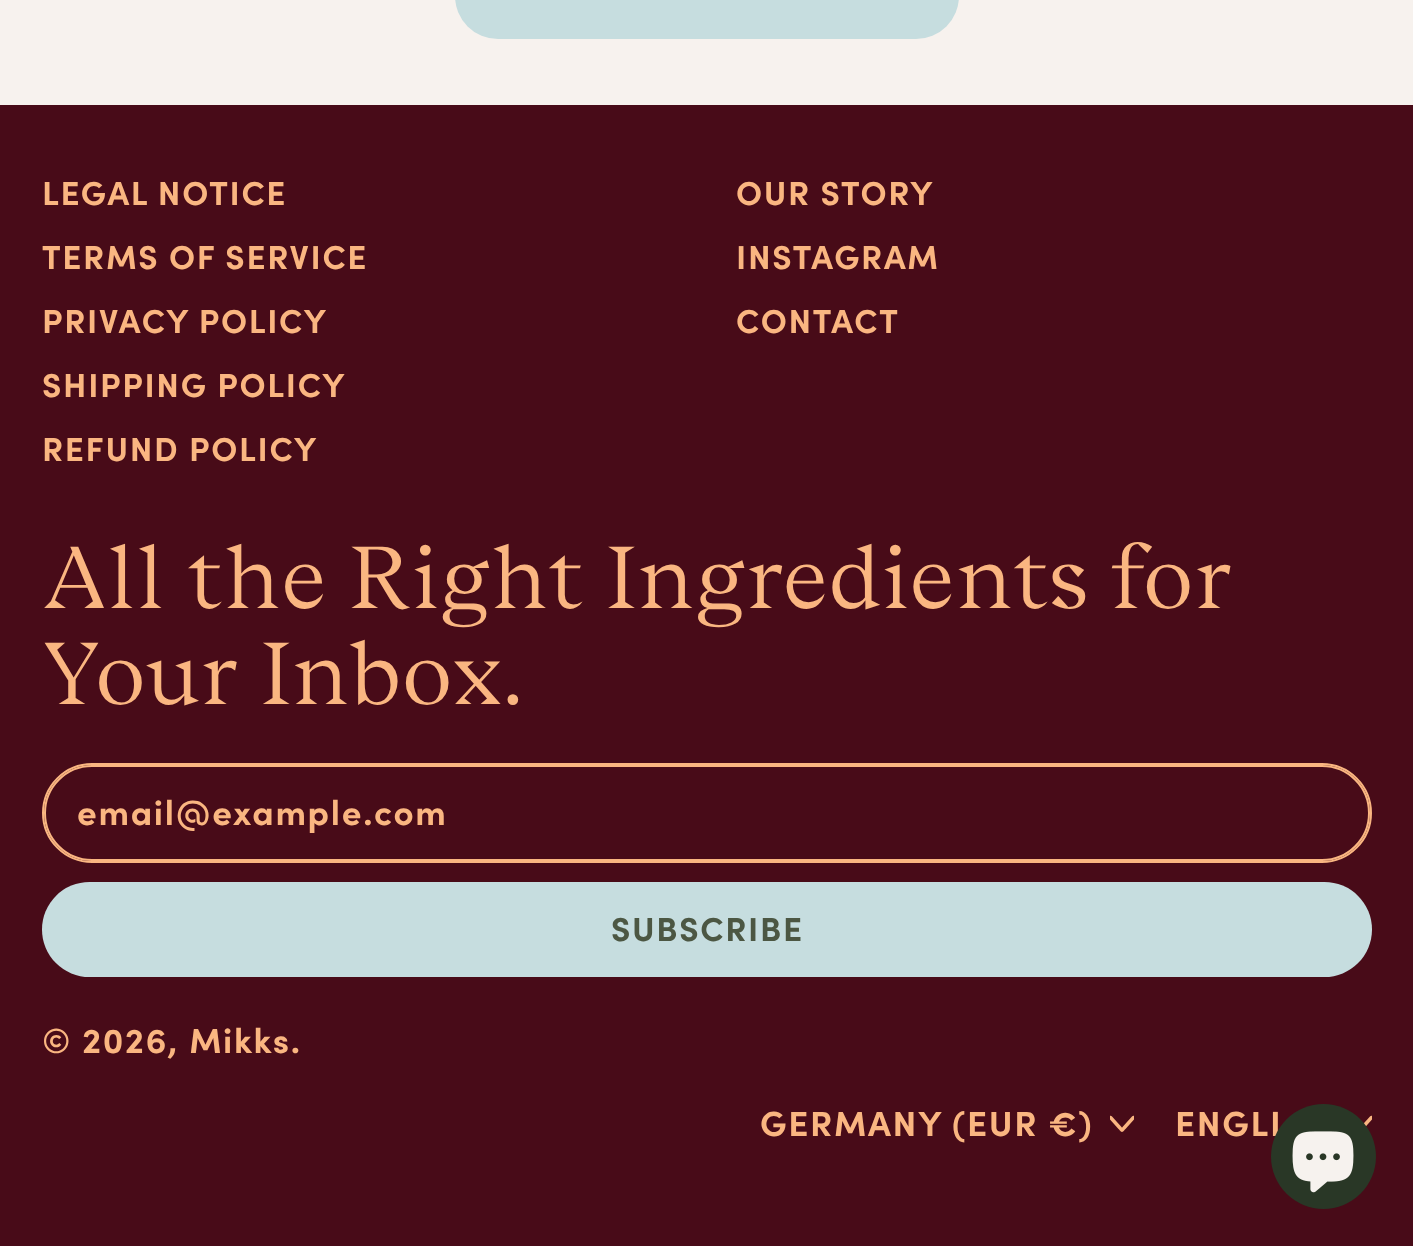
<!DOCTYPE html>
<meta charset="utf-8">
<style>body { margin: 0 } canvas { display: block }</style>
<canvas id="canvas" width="1413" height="1246"></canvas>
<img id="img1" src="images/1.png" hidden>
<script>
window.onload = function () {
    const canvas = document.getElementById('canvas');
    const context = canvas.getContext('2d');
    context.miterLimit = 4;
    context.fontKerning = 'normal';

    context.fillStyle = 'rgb(247, 242, 238)';
    context.fillRect(0, 0, 1413, 1246);
    context.fillStyle = 'rgb(198, 221, 223)';
    context.beginPath();
    context.roundRect(455, -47, 504, 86, 46.5);
    context.fill();
    context.fillStyle = 'rgb(72, 11, 24)';
    context.fillRect(0, 105, 1413, 1141);
    context.beginPath();
    context.roundRect(45, 766, 1324, 94, 47);
    context.strokeStyle = 'rgb(250, 182, 129)';
    context.lineWidth = 2;
    context.stroke();
    context.beginPath();
    context.roundRect(43, 764, 1328, 98, 49);
    context.stroke();
    context.fillStyle = 'rgb(198, 221, 223)';
    context.beginPath();
    context.roundRect(42, 882, 1330, 95, 47.5);
    context.fill();
    context.save();
    context.beginPath();
    context.rect(1110, 1111, 24, 25);
    context.clip();
    context.beginPath();
    context.moveTo(1110.5, 1117.5);
    context.lineTo(1120, 1128);
    context.bezierCurveTo(1122.5, 1131, 1121.5, 1131, 1124, 1128);
    context.lineTo(1133.5, 1117.5);
    context.lineWidth = 3.5;
    context.lineCap = 'round';
    context.lineJoin = 'round';
    context.stroke();
    context.restore();
    context.save();
    context.beginPath();
    context.rect(1348, 1111, 24, 25);
    context.clip();
    context.beginPath();
    context.moveTo(1348.5, 1117.5);
    context.lineTo(1358, 1128);
    context.bezierCurveTo(1360.5, 1131, 1359.5, 1131, 1362, 1128);
    context.lineTo(1371.5, 1117.5);
    context.lineWidth = 3.5;
    context.lineCap = 'round';
    context.lineJoin = 'round';
    context.stroke();
    context.restore();
    context.letterSpacing = '1.7px';
    context.font = 'bold 33.25px Sofia';
    context.fillStyle = 'rgb(250, 182, 129)';
    context.fillText('LEGAL NOTICE', 42, 205);
    context.fillText('TERMS OF SERVICE', 42, 269);
    context.fillText('PRIVACY POLICY', 42, 333);
    context.fillText('SHIPPING POLICY', 42, 397);
    context.fillText('REFUND POLICY', 42, 461);
    context.fillText('OUR STORY', 736, 205);
    context.fillText('INSTAGRAM', 736, 269);
    context.fillText('CONTACT', 736, 333);
    context.letterSpacing = '-0.45px';
    context.wordSpacing = '-0.5px';
    context.font = '300 87.5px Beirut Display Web';
    context.fillText('All the Right Ingredients for', 42, 608);
    context.wordSpacing = '0px';
    context.fillText('Your Inbox.', 42, 704);
    context.letterSpacing = '1.7px';
    context.font = 'bold 35px Sofia';
    context.fillText('email@example.com', 77, 825);
    context.font = 'bold 33.25px Sofia';
    context.fillStyle = 'rgb(76, 87, 67)';
    context.fillText('SUBSCRIBE', 611, 941);
    context.font = 'bold 35px Sofia';
    context.fillStyle = 'rgb(250, 182, 129)';
    context.fillText('© 2026, Mikks.', 42, 1053);
    context.fillText('GERMANY (EUR €)', 760, 1136);
    context.fillText('ENGLI', 1175, 1136);
    context.fillStyle = 'rgb(41, 55, 38)';
    context.beginPath();
    context.arc(1323.5, 1156.5, 52.5, 0, 2 * Math.PI);
    context.fill();
    context.drawImage(document.getElementById('img1'), 1292, 1131, 62, 62);
};
</script>
